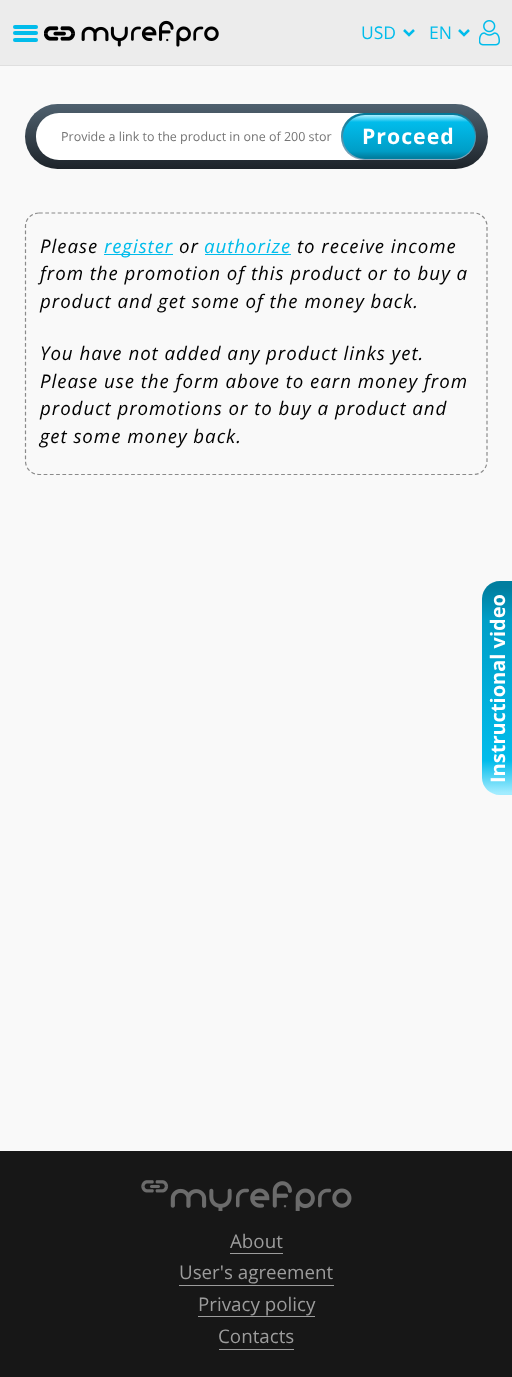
<!DOCTYPE html>
<meta charset="utf-8">
<style>body { margin: 0 } canvas { display: block }</style>
<canvas id="canvas" width="512" height="1377"></canvas>
<img id="img1" src="images/1.png" hidden>
<img id="img2" src="images/2.png" hidden>
<img id="img3" src="images/3.png" hidden>
<script>
window.onload = function () {
    const canvas = document.getElementById('canvas');
    const context = canvas.getContext('2d');
    context.miterLimit = 4;
    context.fontKerning = 'normal';
    let gradient;

    context.fillStyle = 'rgb(249, 249, 249)';
    context.fillRect(0, 0, 512, 1377);
    context.fillStyle = 'rgb(236, 236, 236)';
    context.fillRect(0, 0, 512, 65);
    context.fillStyle = 'rgb(223, 223, 223)';
    context.fillRect(0, 65, 512, 1);
    context.fillStyle = 'rgb(1, 188, 235)';
    context.beginPath();
    context.roundRect(13, 38, 25, 4, 2);
    context.fill();
    context.beginPath();
    context.roundRect(13, 31, 25, 4, 2);
    context.fill();
    context.beginPath();
    context.roundRect(13, 25, 25, 4, 2);
    context.fill();
    context.drawImage(document.getElementById('img1'), 44, 20, 175, 27);
    context.beginPath();
    context.moveTo(404, 30);
    context.lineTo(409, 35);
    context.lineTo(414, 30);
    context.strokeStyle = 'rgb(1, 188, 235)';
    context.lineWidth = 2.5;
    context.stroke();
    context.beginPath();
    context.moveTo(459, 30);
    context.lineTo(464, 35);
    context.lineTo(469, 30);
    context.stroke();
    context.drawImage(document.getElementById('img2'), 479, 20, 21, 26);
    gradient = context.createLinearGradient(256, 104, 256, 169);
    gradient.addColorStop(0, 'rgb(79, 97, 111)');
    gradient.addColorStop(1, 'rgb(29, 35, 41)');
    context.fillStyle = gradient;
    context.beginPath();
    context.roundRect(25, 104, 463, 65, 32.5);
    context.fill();
    context.fillStyle = 'rgb(255, 255, 255)';
    context.beginPath();
    context.roundRect(36, 113, 349, 47, 23);
    context.fill();
    gradient = context.createLinearGradient(409, 113, 409, 160);
    gradient.addColorStop(0, 'rgb(0, 120, 152)');
    gradient.addColorStop(1, 'rgb(141, 168, 188)');
    context.fillStyle = gradient;
    context.beginPath();
    context.roundRect(341, 113, 135, 47, 23);
    context.fill();
    gradient = context.createLinearGradient(409, 115, 409, 159);
    gradient.addColorStop(0.01, 'rgb(162, 236, 255)');
    gradient.addColorStop(0.16, 'rgb(1, 188, 235)');
    gradient.addColorStop(0.82, 'rgb(0, 158, 199)');
    gradient.addColorStop(0.97, 'rgb(0, 126, 159)');
    context.fillStyle = gradient;
    context.beginPath();
    context.roundRect(343, 115, 132, 44, 22);
    context.fill();
    context.beginPath();
    context.moveTo(39, 213);
    context.lineTo(474, 213);
    context.bezierCurveTo(481, 213, 487, 219, 487, 226);
    context.lineTo(487, 461);
    context.bezierCurveTo(487, 468.5, 481, 474.5, 474, 474.5);
    context.lineTo(39, 474.5);
    context.bezierCurveTo(31.5, 474.5, 25.5, 468.5, 25.5, 461);
    context.lineTo(25.5, 226);
    context.bezierCurveTo(25.5, 219, 31.5, 213, 39, 213);
    context.closePath();
    context.strokeStyle = 'rgb(138, 138, 138)';
    context.lineWidth = 1.2;
    context.setLineDash([3.75, 2.5]);
    context.stroke();
    context.fillStyle = 'rgb(1, 188, 235)';
    context.fillRect(104, 254, 69, 1);
    context.fillRect(205, 254, 86, 1);
    gradient = context.createLinearGradient(498, 795, 498, 581);
    gradient.addColorStop(0.01, 'rgb(162, 236, 255)');
    gradient.addColorStop(0.16, 'rgb(1, 188, 235)');
    gradient.addColorStop(0.82, 'rgb(0, 158, 199)');
    gradient.addColorStop(0.97, 'rgb(0, 126, 159)');
    context.fillStyle = gradient;
    context.beginPath();
    context.moveTo(512, 795);
    context.lineTo(500, 795);
    context.bezierCurveTo(490, 795, 482, 787, 482, 778);
    context.lineTo(482, 599);
    context.bezierCurveTo(482, 589, 490, 581, 500, 581);
    context.lineTo(512, 581);
    context.closePath();
    context.fill();
    context.fillStyle = 'rgb(23, 23, 23)';
    context.fillRect(0, 1151, 512, 226);
    context.drawImage(document.getElementById('img3'), 141, 1180, 211, 31);
    context.fillStyle = 'rgb(156, 156, 156)';
    context.fillRect(230, 1253, 53, 1);
    context.fillRect(179, 1285, 155, 1);
    context.fillRect(198, 1316, 117, 1);
    context.fillRect(219, 1349, 75, 1);
    context.font = '17.5px Open Sans';
    context.fillStyle = 'rgb(1, 188, 235)';
    context.fillText('USD', 361, 39);
    context.fillText('EN', 429, 39);
    context.font = '12.5px Open Sans';
    context.fillStyle = 'rgb(117, 117, 117)';
    context.fillText('Provide a link to the product in one of 200 stor', 61, 141);
    context.letterSpacing = '1px';
    context.font = 'bold 21.25px Open Sans';
    context.fillStyle = 'rgb(255, 255, 255)';
    context.fillText('Proceed', 362, 144);
    context.letterSpacing = '0.95px';
    context.font = 'italic 18.75px Open Sans';
    context.fillStyle = 'rgb(0, 0, 0)';
    context.fillText('Please', 40, 253);
    context.fillStyle = 'rgb(1, 188, 235)';
    context.fillText('register', 104, 253);
    context.fillStyle = 'rgb(0, 0, 0)';
    context.fillText('or', 179, 253);
    context.fillStyle = 'rgb(1, 188, 235)';
    context.fillText('authorize', 204, 253);
    context.fillStyle = 'rgb(0, 0, 0)';
    context.fillText('to receive income', 297, 253);
    context.fillText('from the promotion of this product or to buy a', 40, 280);
    context.fillText('product and get some of the money back.', 40, 308);
    context.fillText('You have not added any product links yet.', 40, 360);
    context.fillText('Please use the form above to earn money from', 40, 388);
    context.fillText('product promotions or to buy a product and', 40, 415);
    context.fillText('get some money back.', 40, 443);
    context.letterSpacing = '0px';
    context.font = 'bold 20px Open Sans';
    context.fillStyle = 'rgb(255, 255, 255)';
    context.save();
    context.translate(505, 783);
    context.rotate(-90 * Math.PI / 180);
    context.fillText('Instructional video', 0, 0);
    context.restore();
    context.font = '18.75px Open Sans';
    context.fillStyle = 'rgb(156, 156, 156)';
    context.fillText('About', 230, 1248);
    context.fillText('User\'s agreement', 179, 1279);
    context.fillText('Privacy policy', 198, 1311);
    context.fillText('Contacts', 218, 1343);
};
</script>
